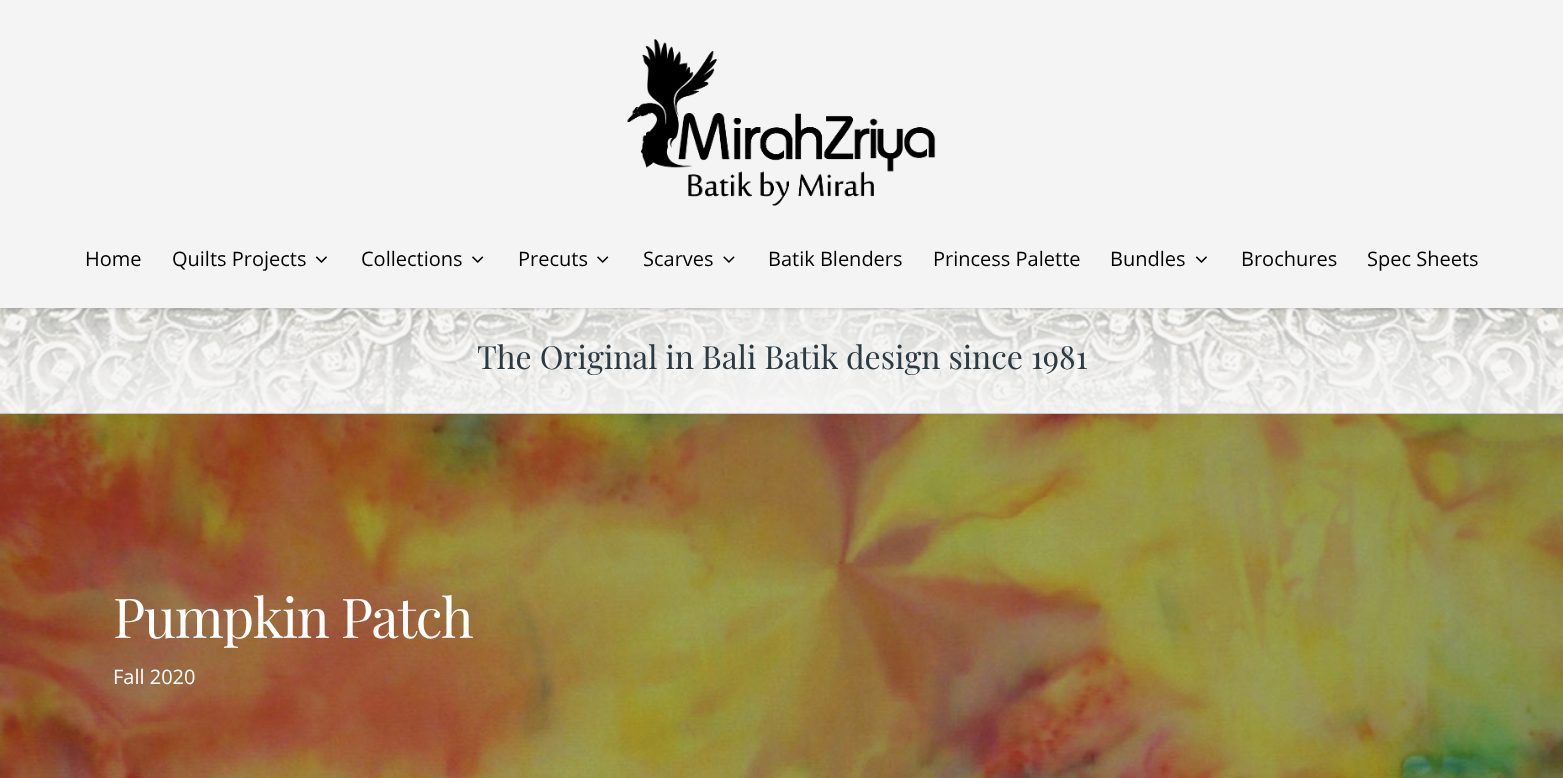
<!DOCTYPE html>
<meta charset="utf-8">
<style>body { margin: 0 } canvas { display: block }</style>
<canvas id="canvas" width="1563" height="778"></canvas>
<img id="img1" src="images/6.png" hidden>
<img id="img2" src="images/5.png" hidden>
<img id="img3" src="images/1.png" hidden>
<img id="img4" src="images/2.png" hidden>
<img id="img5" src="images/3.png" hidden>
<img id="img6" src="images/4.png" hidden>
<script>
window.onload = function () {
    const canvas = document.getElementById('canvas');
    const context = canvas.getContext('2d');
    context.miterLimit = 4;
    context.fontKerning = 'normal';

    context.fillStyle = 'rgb(247, 247, 247)';
    context.fillRect(0, 0, 1563, 778);
    context.drawImage(document.getElementById('img1'), 0, 413, 1563, 365);
    context.drawImage(document.getElementById('img2'), 0, 308, 1563, 106);
    context.fillStyle = 'rgba(0, 0, 0, 0.22)';
    context.filter = 'blur(2px)';
    context.beginPath();
    context.rect(0, 0, 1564, 308);
    context.fill();
    context.filter = 'none';
    context.fillStyle = 'rgb(244, 244, 244)';
    context.fillRect(0, 0, 1563, 308);
    context.drawImage(document.getElementById('img3'), 627, 39, 309, 167);
    context.drawImage(document.getElementById('img4'), 315, 256, 12, 7);
    context.drawImage(document.getElementById('img5'), 472, 256, 12, 7);
    context.drawImage(document.getElementById('img5'), 597, 256, 12, 7);
    context.drawImage(document.getElementById('img6'), 723, 256, 12, 7);
    context.drawImage(document.getElementById('img4'), 1195, 256, 12, 7);
    context.fillStyle = 'rgba(0, 0, 0, 0.15)';
    context.fillRect(0, 413, 1563, 1);
    context.font = '20px Open Sans';
    context.fillStyle = 'rgb(0, 0, 0)';
    context.fillText('Home', 85, 266);
    context.fillText('Quilts Projects', 172, 266);
    context.fillText('Collections', 361, 266);
    context.fillText('Precuts', 518, 266);
    context.fillText('Scarves', 643, 266);
    context.fillText('Batik Blenders', 768, 266);
    context.fillText('Princess Palette', 933, 266);
    context.fillText('Bundles', 1110, 266);
    context.fillText('Brochures', 1241, 266);
    context.fillText('Spec Sheets', 1367, 266);
    context.font = '32px Playfair Display';
    context.fillStyle = 'rgb(43, 58, 67)';
    context.fillText('The Original in Bali Batik design since 1981', 477, 369);
    context.letterSpacing = '-1.25px';
    context.font = '55px Playfair Display';
    context.fillStyle = 'rgb(255, 255, 255)';
    context.fillText('Pumpkin Patch', 113, 638);
    context.letterSpacing = '0px';
    context.font = '20px Open Sans';
    context.fillText('Fall 2020', 113, 684);
};
</script>
